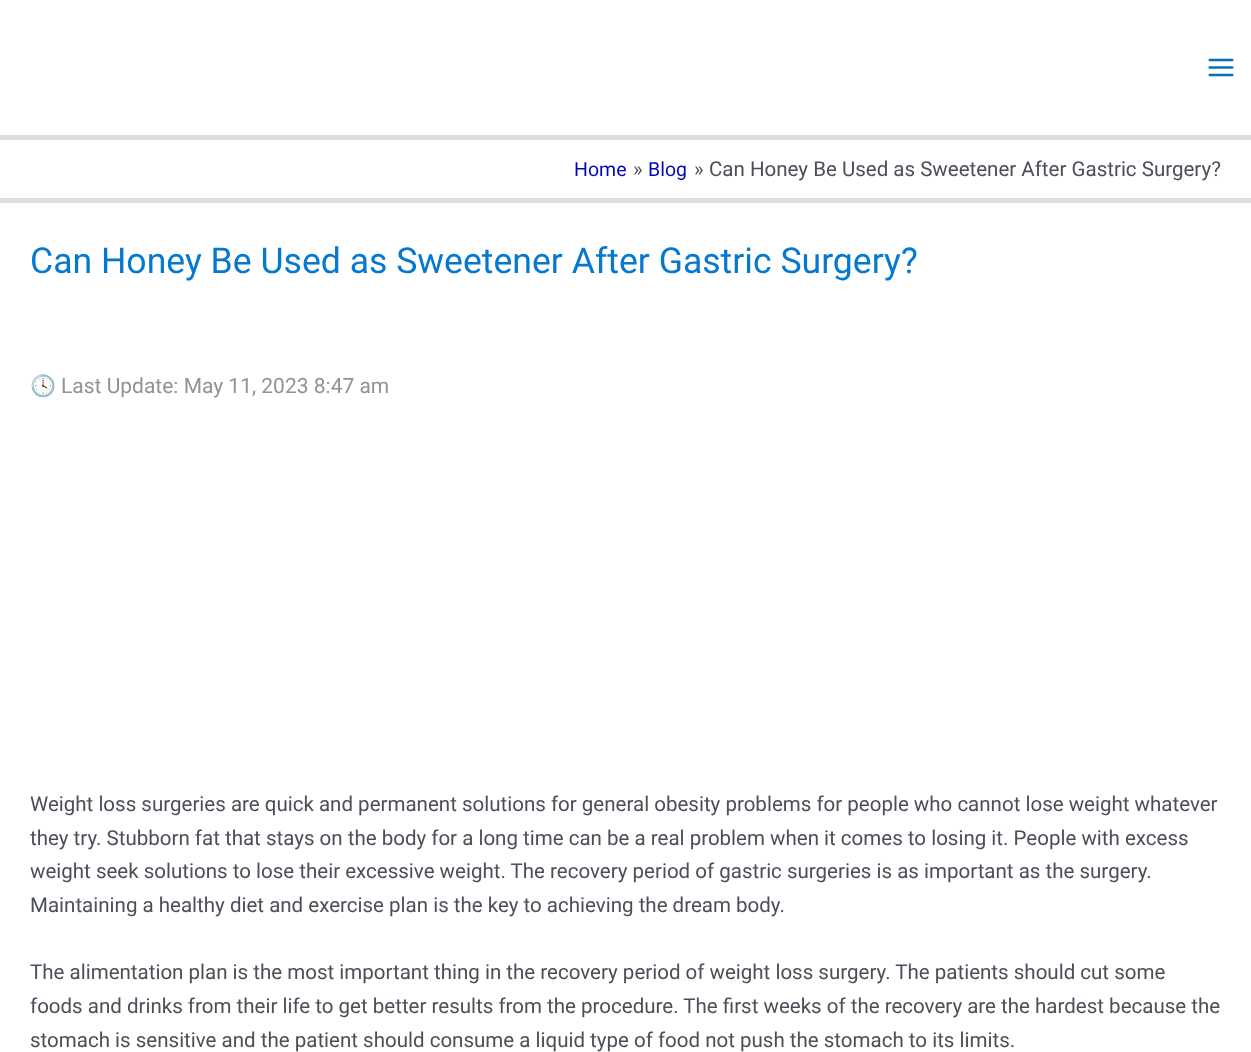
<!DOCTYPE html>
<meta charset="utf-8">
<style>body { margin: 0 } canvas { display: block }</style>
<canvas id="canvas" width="1251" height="1052"></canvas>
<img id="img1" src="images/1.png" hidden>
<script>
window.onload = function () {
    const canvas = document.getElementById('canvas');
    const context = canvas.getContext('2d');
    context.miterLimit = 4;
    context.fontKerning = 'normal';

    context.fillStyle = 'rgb(255, 255, 255)';
    context.fillRect(0, 0, 1251, 1052);
    context.fillStyle = 'rgb(221, 221, 221)';
    context.fillRect(0, 135, 1251, 5);
    context.drawImage(document.getElementById('img1'), 1208, 58, 26, 19);
    context.fillRect(0, 198, 1251, 5);
    context.font = '19.5px Roboto';
    context.fillStyle = 'rgb(0, 7, 188)';
    context.fillText('Home', 574, 176);
    context.font = '20.52px Roboto';
    context.fillStyle = 'rgb(75, 79, 88)';
    context.fillText('»', 633, 176);
    context.font = '19.5px Roboto';
    context.fillStyle = 'rgb(0, 7, 188)';
    context.fillText('Blog', 648, 176);
    context.font = '20.52px Roboto';
    context.fillStyle = 'rgb(75, 79, 88)';
    context.fillText('»', 694, 176);
    context.fillText('Can Honey Be Used as Sweetener After Gastric Surgery?', 709, 176);
    context.font = '35.6px Roboto';
    context.fillStyle = 'rgb(5, 120, 207)';
    context.fillText('Can Honey Be Used as Sweetener After Gastric Surgery?', 30, 273);
    context.font = '21px Noto Color Emoji';
    context.fillStyle = 'rgb(146, 146, 146)';
    context.fillText('🕓', 30, 393);
    context.font = '21px Roboto';
    context.fillText('Last Update: May 11, 2023 8:47 am', 61, 393);
    context.font = '20.52px Roboto';
    context.fillStyle = 'rgb(75, 79, 88)';
    context.fillText('Weight loss surgeries are quick and permanent solutions for general obesity problems for people who cannot lose weight whatever', 30, 811);
    context.fillText('they try. Stubborn fat that stays on the body for a long time can be a real problem when it comes to losing it. People with excess', 30, 845);
    context.fillText('weight seek solutions to lose their excessive weight. The recovery period of gastric surgeries is as important as the surgery.', 30, 878);
    context.fillText('Maintaining a healthy diet and exercise plan is the key to achieving the dream body.', 30, 912);
    context.fillText('The alimentation plan is the most important thing in the recovery period of weight loss surgery. The patients should cut some', 30, 979);
    context.fillText('foods and drinks from their life to get better results from the procedure. The first weeks of the recovery are the hardest because the', 30, 1013);
    context.fillText('stomach is sensitive and the patient should consume a liquid type of food not push the stomach to its limits.', 30, 1047);
};
</script>
